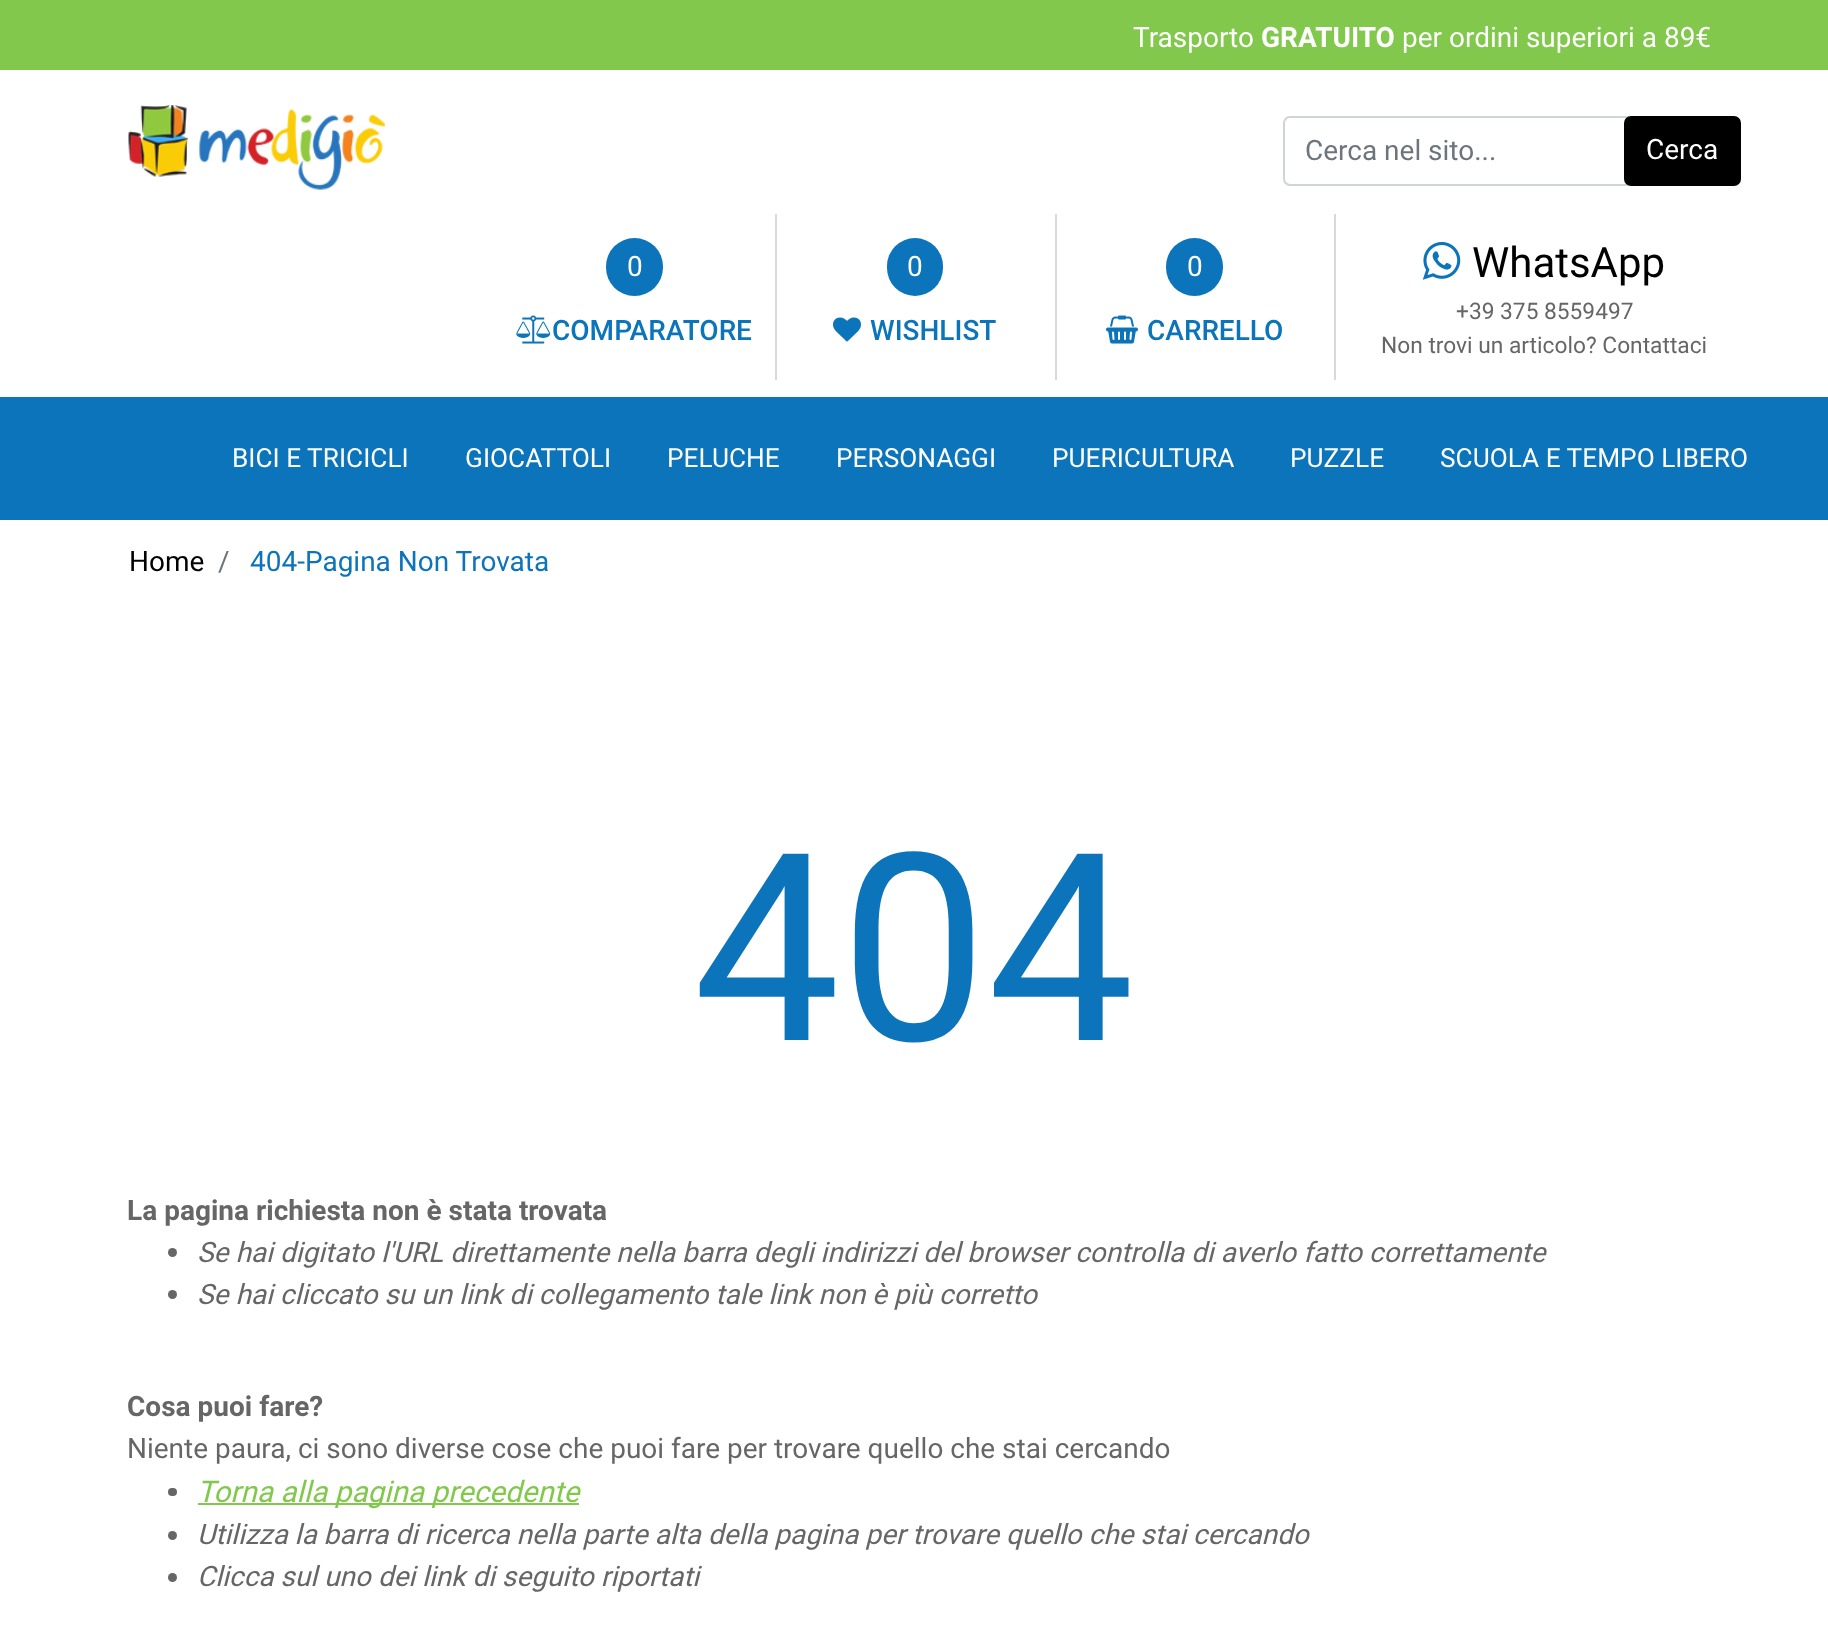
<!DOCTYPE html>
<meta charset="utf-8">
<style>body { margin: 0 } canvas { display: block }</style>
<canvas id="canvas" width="1828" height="1641"></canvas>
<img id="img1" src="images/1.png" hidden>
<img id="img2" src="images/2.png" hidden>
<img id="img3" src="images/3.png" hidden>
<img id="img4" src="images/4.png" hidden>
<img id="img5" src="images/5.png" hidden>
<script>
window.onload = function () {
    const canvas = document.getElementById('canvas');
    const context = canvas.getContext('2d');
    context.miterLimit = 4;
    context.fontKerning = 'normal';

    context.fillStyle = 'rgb(255, 255, 255)';
    context.fillRect(0, 0, 1828, 1641);
    context.fillStyle = 'rgb(129, 200, 76)';
    context.fillRect(0, 0, 1828, 70);
    context.drawImage(document.getElementById('img1'), 128, 105, 257, 85);
    context.beginPath();
    context.roundRect(1284, 117, 348, 68, 6);
    context.strokeStyle = 'rgb(206, 212, 218)';
    context.lineWidth = 2;
    context.stroke();
    context.fillStyle = 'rgb(0, 0, 0)';
    context.beginPath();
    context.roundRect(1624, 116, 117, 70, 7);
    context.fill();
    context.fillStyle = 'rgb(12, 116, 186)';
    context.beginPath();
    context.roundRect(606, 238, 57, 58, 28.5);
    context.fill();
    context.drawImage(document.getElementById('img2'), 516, 315, 35, 29);
    context.fillStyle = 'rgb(217, 217, 217)';
    context.fillRect(775, 214, 2, 166);
    context.fillStyle = 'rgb(12, 116, 186)';
    context.beginPath();
    context.roundRect(887, 238, 56, 58, 28);
    context.fill();
    context.drawImage(document.getElementById('img3'), 833, 317, 28, 25);
    context.fillStyle = 'rgb(217, 217, 217)';
    context.fillRect(1334, 214, 2, 166);
    context.fillRect(1055, 214, 2, 166);
    context.fillStyle = 'rgb(12, 116, 186)';
    context.beginPath();
    context.roundRect(1166, 238, 57, 58, 28.5);
    context.fill();
    context.drawImage(document.getElementById('img4'), 1106, 315, 32, 29);
    context.drawImage(document.getElementById('img5'), 1422, 242, 39, 38);
    context.fillRect(0, 397, 1828, 123);
    context.fillStyle = 'rgb(102, 102, 102)';
    context.beginPath();
    context.arc(172.5, 1252.5, 4.5, 0, 2 * Math.PI);
    context.fill();
    context.beginPath();
    context.arc(172.5, 1294.5, 4.5, 0, 2 * Math.PI);
    context.fill();
    context.beginPath();
    context.roundRect(168, 1488, 9, 8, 4);
    context.fill();
    context.fillStyle = 'rgb(129, 200, 76)';
    context.fillRect(198, 1503, 381, 2);
    context.fillStyle = 'rgb(102, 102, 102)';
    context.beginPath();
    context.arc(172.5, 1535.5, 4.5, 0, 2 * Math.PI);
    context.fill();
    context.beginPath();
    context.arc(172.5, 1577.5, 4.5, 0, 2 * Math.PI);
    context.fill();
    context.font = '28px Roboto';
    context.fillStyle = 'rgb(255, 255, 255)';
    context.fillText('Trasporto', 1133, 47);
    context.font = 'bold 28px Roboto';
    context.fillText('GRATUITO', 1261, 47);
    context.font = '28px Roboto';
    context.fillText('per ordini superiori a 89€', 1402, 47);
    context.fillStyle = 'rgb(108, 117, 125)';
    context.fillText('Cerca nel sito...', 1305, 160);
    context.fillStyle = 'rgb(255, 255, 255)';
    context.fillText('Cerca', 1646, 159);
    context.fillText('0', 627, 276);
    context.font = '500 28px Roboto';
    context.fillStyle = 'rgb(12, 116, 186)';
    context.fillText('COMPARATORE', 552, 340);
    context.font = '28px Roboto';
    context.fillStyle = 'rgb(255, 255, 255)';
    context.fillText('0', 907, 276);
    context.font = '500 28px Roboto';
    context.fillStyle = 'rgb(12, 116, 186)';
    context.fillText('WISHLIST', 870, 340);
    context.font = '28px Roboto';
    context.fillStyle = 'rgb(255, 255, 255)';
    context.fillText('0', 1187, 276);
    context.font = '500 28px Roboto';
    context.fillStyle = 'rgb(12, 116, 186)';
    context.fillText('CARRELLO', 1147, 340);
    context.font = '42px Roboto';
    context.fillStyle = 'rgb(0, 0, 0)';
    context.fillText('WhatsApp', 1472, 277);
    context.font = '22.75px Roboto';
    context.fillStyle = 'rgb(102, 102, 102)';
    context.fillText('+39 375 8559497', 1456, 319);
    context.fillText('Non trovi un articolo? Contattaci', 1381, 353);
    context.font = '26.25px Roboto';
    context.fillStyle = 'rgb(255, 255, 255)';
    context.fillText('BICI E TRICICLI', 232, 467);
    context.fillText('GIOCATTOLI', 465, 467);
    context.fillText('PELUCHE', 667, 467);
    context.fillText('PERSONAGGI', 836, 467);
    context.fillText('PUERICULTURA', 1052, 467);
    context.fillText('PUZZLE', 1290, 467);
    context.fillText('SCUOLA E TEMPO LIBERO', 1440, 467);
    context.font = '28px Roboto';
    context.fillStyle = 'rgb(0, 0, 0)';
    context.fillText('Home', 129, 571);
    context.fillStyle = 'rgb(108, 117, 125)';
    context.fillText('/', 218, 571);
    context.fillStyle = 'rgb(12, 116, 186)';
    context.fillText('404-Pagina Non Trovata', 250, 571);
    context.font = '262px Roboto';
    context.fillText('404', 693, 1040);
    context.font = 'bold 28px Roboto';
    context.fillStyle = 'rgb(102, 102, 102)';
    context.fillText('La pagina richiesta non è stata trovata', 127, 1220);
    context.font = 'italic 28px Roboto';
    context.fillText('Se hai digitato l\'URL direttamente nella barra degli indirizzi del browser controlla di averlo fatto correttamente', 197, 1262);
    context.fillText('Se hai cliccato su un link di collegamento tale link non è più corretto', 197, 1304);
    context.font = 'bold 28px Roboto';
    context.fillText('Cosa puoi fare?', 127, 1416);
    context.font = '28px Roboto';
    context.fillText('Niente paura, ci sono diverse cose che puoi fare per trovare quello che stai cercando', 127, 1458);
    context.font = 'italic 29.75px Roboto';
    context.fillStyle = 'rgb(129, 200, 76)';
    context.fillText('Torna alla pagina precedente', 197, 1502);
    context.font = 'italic 28px Roboto';
    context.fillStyle = 'rgb(102, 102, 102)';
    context.fillText('Utilizza la barra di ricerca nella parte alta della pagina per trovare quello che stai cercando', 197, 1544);
    context.fillText('Clicca sul uno dei link di seguito riportati', 197, 1586);
};
</script>
